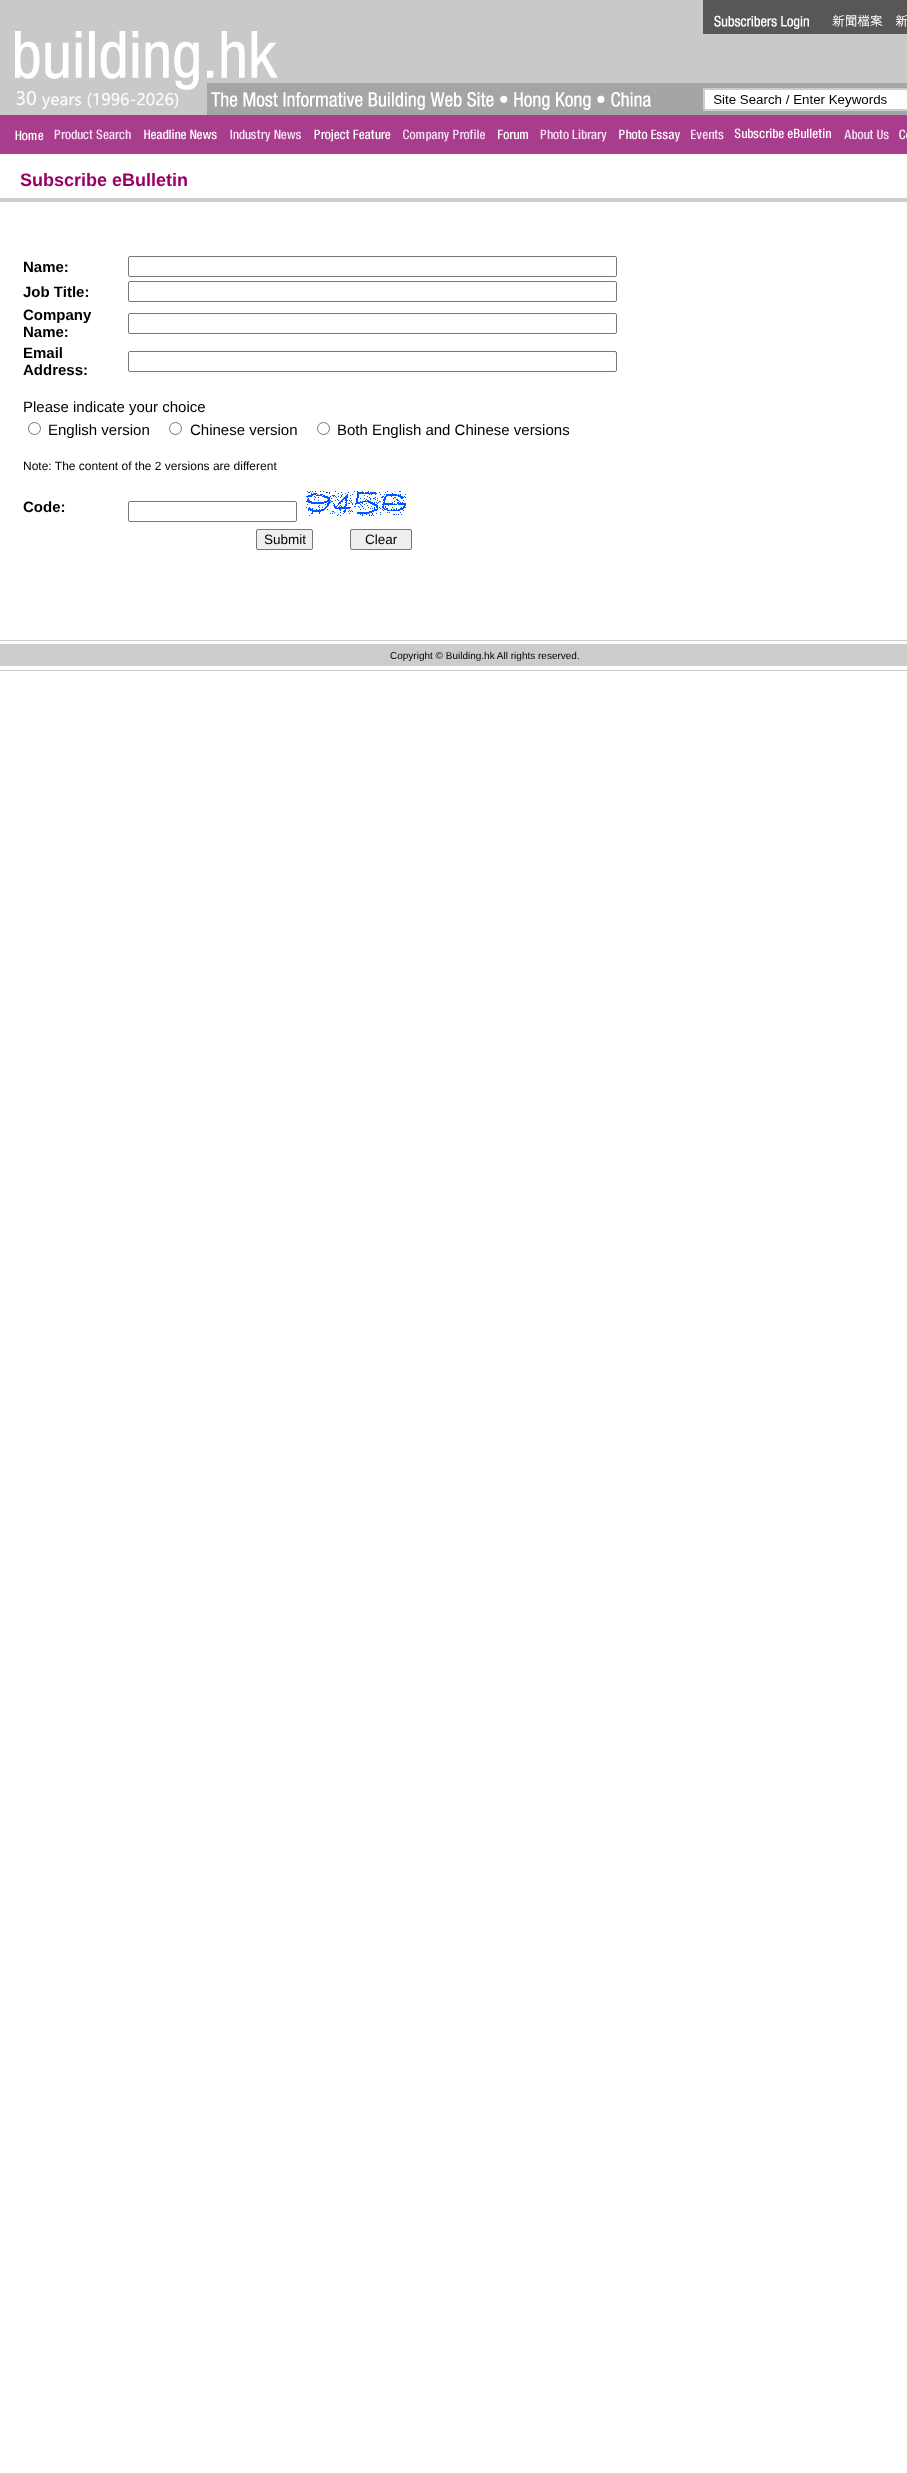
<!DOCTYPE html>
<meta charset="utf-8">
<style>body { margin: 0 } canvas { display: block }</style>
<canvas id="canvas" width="907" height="2473"></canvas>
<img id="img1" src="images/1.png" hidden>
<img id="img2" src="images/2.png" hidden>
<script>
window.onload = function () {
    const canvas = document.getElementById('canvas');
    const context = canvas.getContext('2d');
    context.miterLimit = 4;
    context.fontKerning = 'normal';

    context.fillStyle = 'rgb(255, 255, 255)';
    context.fillRect(0, 0, 907, 2473);
    context.drawImage(document.getElementById('img1'), 0, 0, 907, 154);
    context.fillStyle = 'rgb(204, 204, 204)';
    context.fillRect(0, 198, 907, 4);
    context.beginPath();
    context.roundRect(128.5, 256.5, 488, 20, 1.5);
    context.strokeStyle = 'rgb(118, 118, 118)';
    context.stroke();
    context.beginPath();
    context.roundRect(128.5, 281.5, 488, 20, 1.5);
    context.stroke();
    context.beginPath();
    context.roundRect(128.5, 313.5, 488, 20, 1.5);
    context.stroke();
    context.beginPath();
    context.roundRect(128.5, 351.5, 488, 20, 1.5);
    context.stroke();
    context.beginPath();
    context.arc(34.5, 428.5, 6, 0, 2 * Math.PI);
    context.stroke();
    context.beginPath();
    context.arc(175.5, 428.5, 6, 0, 2 * Math.PI);
    context.stroke();
    context.beginPath();
    context.arc(323.5, 428.5, 6, 0, 2 * Math.PI);
    context.stroke();
    context.beginPath();
    context.roundRect(128.5, 501.5, 168, 20, 1.5);
    context.stroke();
    context.drawImage(document.getElementById('img2'), 306, 491, 100, 25);
    context.fillStyle = 'rgb(239, 239, 239)';
    context.beginPath();
    context.roundRect(256.5, 529.5, 56, 20, 1.5);
    context.fill();
    context.stroke();
    context.beginPath();
    context.roundRect(350.5, 529.5, 61, 20, 1.5);
    context.fill();
    context.stroke();
    context.fillStyle = 'rgb(204, 204, 204)';
    context.fillRect(0, 640, 907, 1);
    context.fillRect(0, 644, 907, 22);
    context.fillRect(0, 670, 907, 1);
    context.font = 'bold 18px Liberation Sans';
    context.fillStyle = 'rgb(153, 0, 102)';
    context.fillText('Subscribe eBulletin', 20, 186);
    context.font = 'bold 15px Liberation Sans';
    context.fillStyle = 'rgb(0, 0, 0)';
    context.fillText('Name:', 23, 272);
    context.fillText('Job Title:', 23, 297);
    context.fillText('Company', 23, 320);
    context.fillText('Name:', 23, 337);
    context.fillText('Email', 23, 358);
    context.fillText('Address:', 23, 375);
    context.font = '15px Liberation Sans';
    context.fillText('Please indicate your choice', 23, 412);
    context.fillText('English version', 48, 435);
    context.fillText('Chinese version', 190, 435);
    context.fillText('Both English and Chinese versions', 337, 435);
    context.font = '12px Liberation Sans';
    context.fillText('Note: The content of the 2 versions are different', 23, 470);
    context.font = 'bold 15px Liberation Sans';
    context.fillText('Code:', 23, 512);
    context.font = '13.5px Liberation Sans';
    context.fillText('Submit', 264, 544);
    context.fillText('Clear', 365, 544);
    context.font = '10px Liberation Sans';
    context.fillText('Copyright © Building.hk All rights reserved.', 390, 659);
};
</script>
